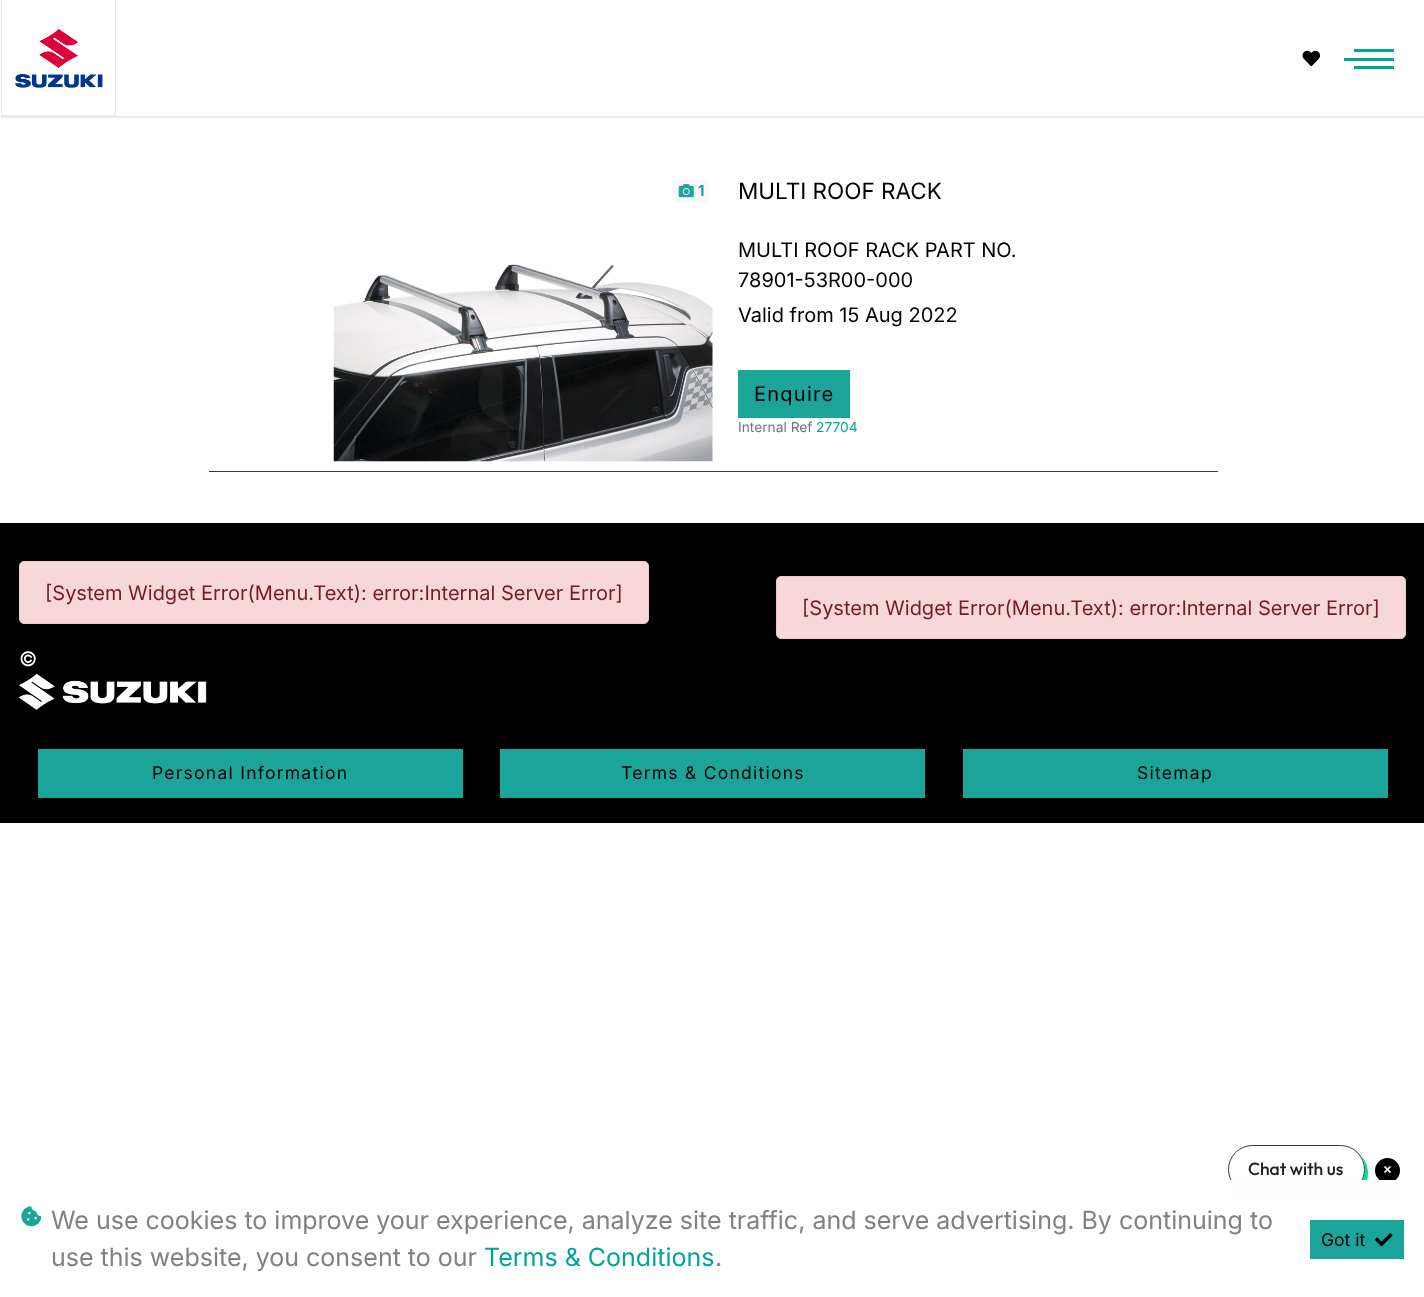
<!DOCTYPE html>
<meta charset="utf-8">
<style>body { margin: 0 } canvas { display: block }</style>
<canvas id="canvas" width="1424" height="1297"></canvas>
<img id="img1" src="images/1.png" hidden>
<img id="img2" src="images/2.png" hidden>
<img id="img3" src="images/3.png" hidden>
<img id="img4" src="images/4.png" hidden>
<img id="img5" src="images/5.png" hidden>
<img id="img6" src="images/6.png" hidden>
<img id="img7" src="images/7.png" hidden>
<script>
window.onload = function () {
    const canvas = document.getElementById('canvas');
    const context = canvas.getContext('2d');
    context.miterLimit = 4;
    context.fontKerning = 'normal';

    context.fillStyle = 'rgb(255, 255, 255)';
    context.fillRect(0, 0, 1424, 1297);
    context.fillStyle = 'rgb(233, 233, 233)';
    context.beginPath();
    context.moveTo(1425, 118);
    context.lineTo(0, 118);
    context.lineTo(1, 116);
    context.lineTo(1424, 116);
    context.closePath();
    context.fill();
    context.fillRect(115, 1, 1, 115);
    context.fillRect(1, 115, 115, 1);
    context.fillRect(1, 1, 1, 115);
    context.drawImage(document.getElementById('img1'), 15, 29, 88, 59);
    context.drawImage(document.getElementById('img2'), 1302, 50, 18, 17);
    context.fillStyle = 'rgb(0, 164, 153)';
    context.fillRect(1354, 49, 40, 3);
    context.fillRect(1344, 58, 50, 3);
    context.fillRect(1354, 66, 40, 3);
    context.fillStyle = 'rgb(52, 58, 64)';
    context.fillRect(209, 471, 1009, 1);
    context.fillStyle = 'rgb(248, 249, 250)';
    context.beginPath();
    context.roundRect(673, 180, 37, 23, 5);
    context.fill();
    context.drawImage(document.getElementById('img3'), 678, 184, 16, 14);
    context.drawImage(document.getElementById('img4'), 333, 264, 380, 198);
    context.fillStyle = 'rgb(27, 164, 153)';
    context.fillRect(738, 370, 112, 48);
    context.fillStyle = 'rgb(0, 0, 0)';
    context.fillRect(0, 523, 1424, 300);
    context.fillStyle = 'rgb(248, 215, 218)';
    context.beginPath();
    context.roundRect(19.5, 561.5, 629, 62, 4.5);
    context.fill();
    context.strokeStyle = 'rgb(245, 198, 203)';
    context.stroke();
    context.beginPath();
    context.roundRect(776.5, 576.5, 629, 62, 4.5);
    context.fill();
    context.stroke();
    context.drawImage(document.getElementById('img5'), 18, 673, 189, 37);
    context.fillStyle = 'rgb(27, 164, 153)';
    context.fillRect(38, 749, 425, 49);
    context.fillRect(500, 749, 425, 49);
    context.fillRect(963, 749, 425, 49);
    context.fillStyle = 'rgb(0, 231, 133)';
    context.beginPath();
    context.moveTo(1232, 1184);
    context.bezierCurveTo(1236, 1192, 1245, 1198, 1254, 1198);
    context.lineTo(1344, 1198);
    context.bezierCurveTo(1357, 1198, 1368, 1187, 1368, 1174);
    context.bezierCurveTo(1368, 1167, 1366, 1161, 1362, 1157);
    context.bezierCurveTo(1364, 1161, 1365, 1165, 1365, 1169);
    context.bezierCurveTo(1365, 1183, 1354, 1194, 1341, 1194);
    context.lineTo(1252, 1194);
    context.bezierCurveTo(1244, 1194, 1237, 1190, 1232, 1184);
    context.closePath();
    context.fill();
    context.fillStyle = 'rgb(255, 255, 255)';
    context.beginPath();
    context.roundRect(1228.5, 1145.5, 136, 48, 24);
    context.fill();
    context.strokeStyle = 'rgb(54, 54, 54)';
    context.stroke();
    context.fillStyle = 'rgb(0, 0, 0)';
    context.beginPath();
    context.arc(1387.5, 1170.5, 12.5, 0, 2 * Math.PI);
    context.fill();
    context.fillStyle = 'rgb(254, 254, 254)';
    context.fillRect(1230, 1180, 166, 18);
    context.drawImage(document.getElementById('img6'), 21, 1206, 21, 21);
    context.fillStyle = 'rgb(27, 164, 153)';
    context.fillRect(1310, 1220, 94, 39);
    context.drawImage(document.getElementById('img7'), 1375, 1233, 18, 14);
    context.beginPath();
    context.moveTo(1384.5, 1166.5);
    context.lineTo(1390.5, 1172.5);
    context.moveTo(1384.5, 1172.5);
    context.lineTo(1390.5, 1166.5);
    context.strokeStyle = 'rgb(255, 255, 255)';
    context.lineWidth = 1.7;
    context.stroke();
    context.font = 'bold 15px Inter';
    context.fillText('1', 698, 196);
    context.font = '22.5px Inter';
    context.fillStyle = 'rgb(0, 0, 0)';
    context.fillText('MULTI ROOF RACK', 738, 199);
    context.font = '20px Inter';
    context.fillText('MULTI ROOF RACK PART NO.', 738, 257);
    context.fillText('78901-53R00-000', 738, 287);
    context.fillText('Valid from 15 Aug 2022', 738, 322);
    context.letterSpacing = '1.25px';
    context.fillText('Enquire', 754, 401);
    context.letterSpacing = '0px';
    context.font = '13.75px Inter';
    context.fillStyle = 'rgb(108, 117, 125)';
    context.fillText('Internal Ref', 738, 432);
    context.fillStyle = 'rgb(0, 164, 153)';
    context.fillText('27704', 816, 432);
    context.font = '20px Inter';
    context.fillStyle = 'rgb(114, 28, 36)';
    context.fillText('[System Widget Error(Menu.Text): error:Internal Server Error]', 45, 600);
    context.fillStyle = 'rgb(255, 255, 255)';
    context.fillText('©', 19, 666);
    context.fillStyle = 'rgb(114, 28, 36)';
    context.fillText('[System Widget Error(Menu.Text): error:Internal Server Error]', 802, 615);
    context.letterSpacing = '1.25px';
    context.font = '17.5px Inter';
    context.fillStyle = 'rgb(0, 0, 0)';
    context.fillText('Personal Information', 152, 779);
    context.fillText('Terms & Conditions', 621, 779);
    context.fillText('Sitemap', 1137, 779);
    context.letterSpacing = '0px';
    context.font = '25px Inter';
    context.fillStyle = 'rgb(129, 129, 130)';
    context.fillText('We use cookies to improve your experience, analyze site traffic, and serve advertising. By continuing to', 51, 1229);
    context.fillText('use this website, you consent to our', 51, 1266);
    context.fillStyle = 'rgb(0, 164, 153)';
    context.fillText('Terms & Conditions', 484, 1266);
    context.fillStyle = 'rgb(129, 129, 130)';
    context.fillText('.', 715, 1266);
    context.font = '17.5px Inter';
    context.fillStyle = 'rgb(0, 0, 0)';
    context.fillText('Got it', 1321, 1246);
    context.font = '500 17.5px Outfit';
    context.fillStyle = 'rgb(32, 32, 32)';
    context.fillText('Chat with us', 1248, 1175);
};
</script>
